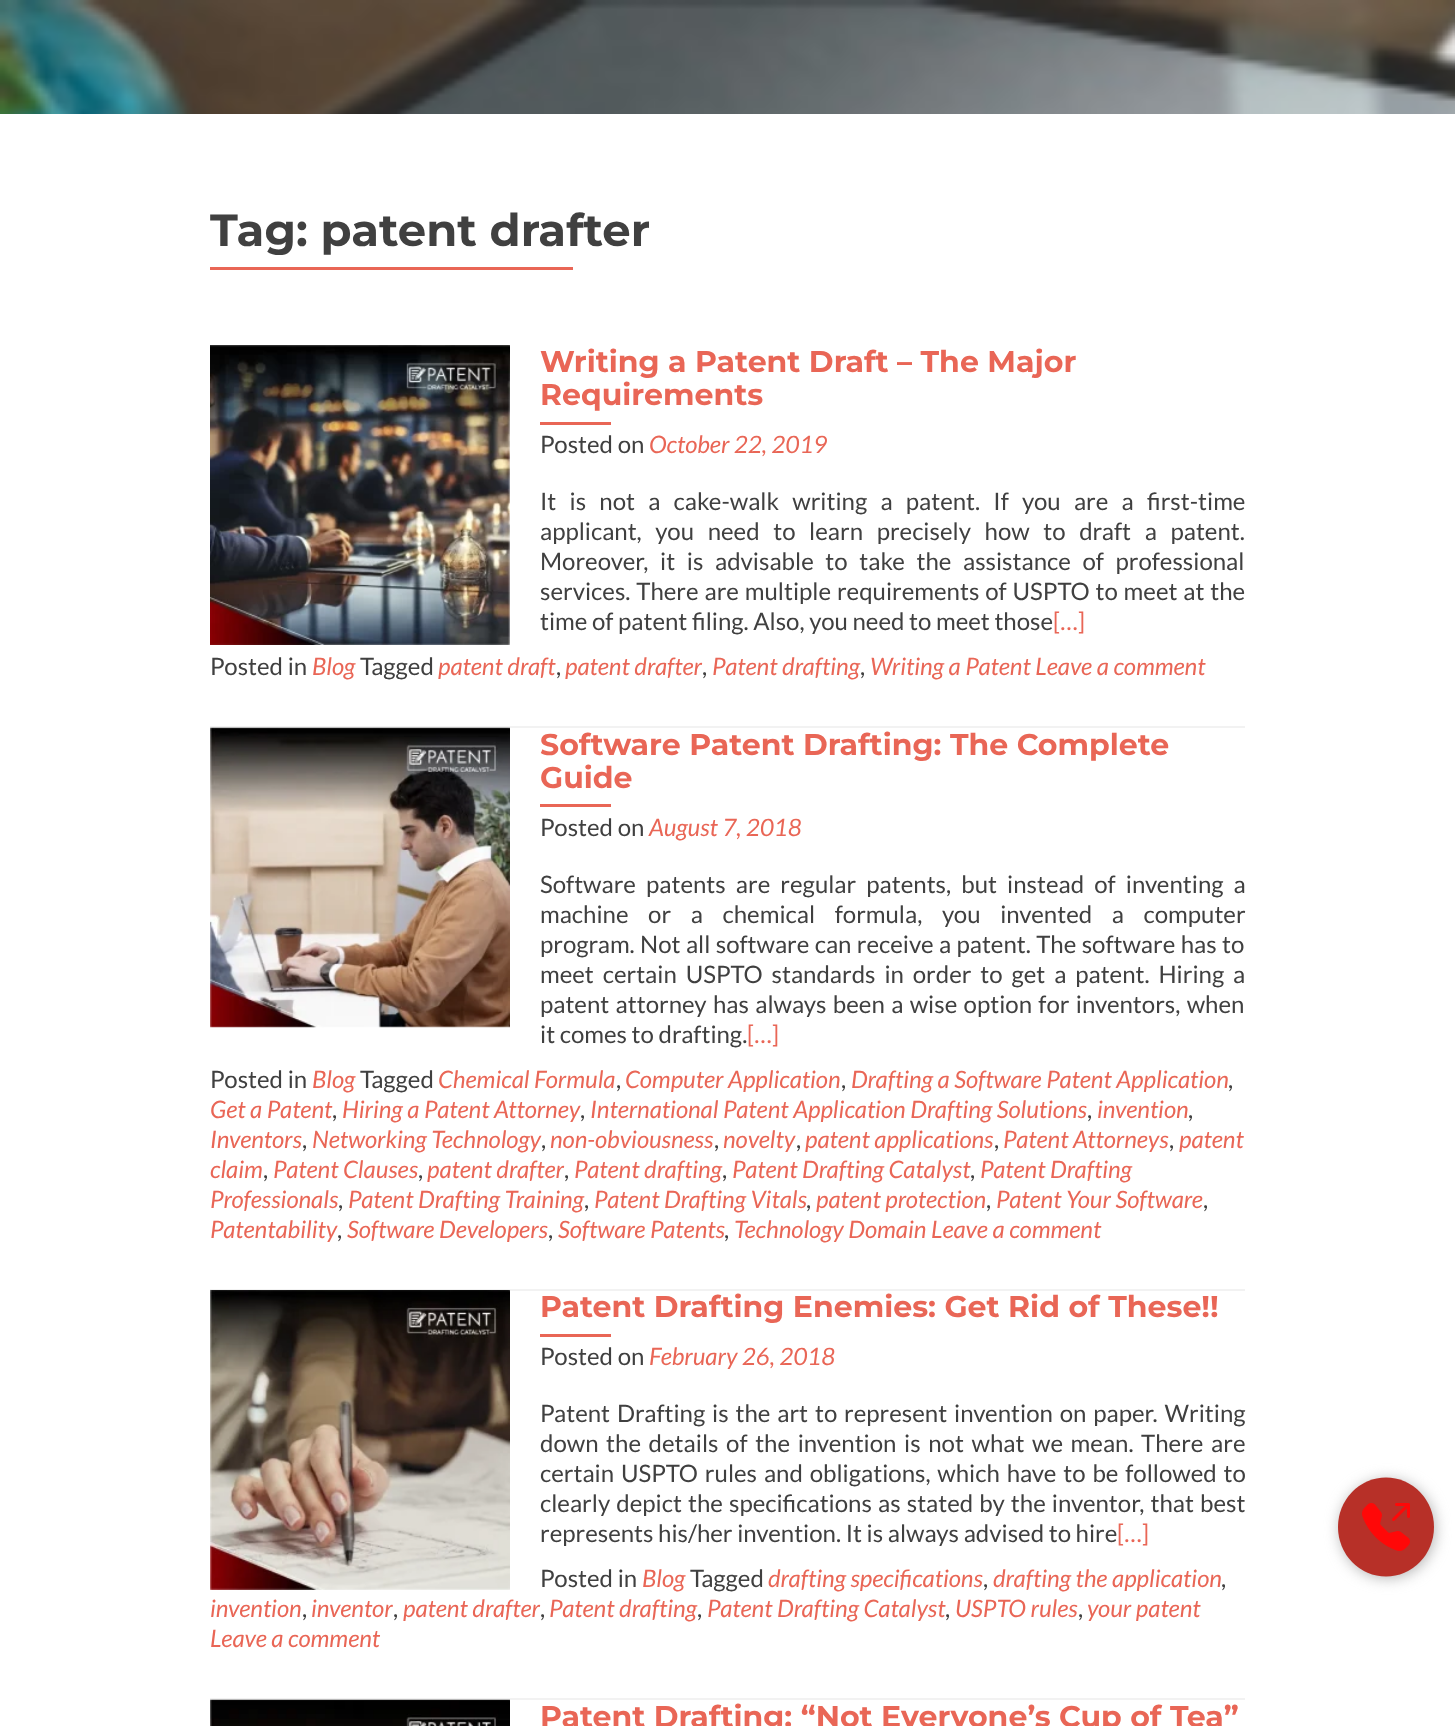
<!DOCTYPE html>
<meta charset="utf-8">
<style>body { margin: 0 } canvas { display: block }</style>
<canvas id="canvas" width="1455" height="1726"></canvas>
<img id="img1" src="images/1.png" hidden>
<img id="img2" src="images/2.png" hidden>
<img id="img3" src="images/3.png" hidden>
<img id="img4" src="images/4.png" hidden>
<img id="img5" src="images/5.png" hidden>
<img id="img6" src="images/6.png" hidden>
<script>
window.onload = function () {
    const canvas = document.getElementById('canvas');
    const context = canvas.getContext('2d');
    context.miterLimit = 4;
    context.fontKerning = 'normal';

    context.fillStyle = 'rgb(255, 255, 255)';
    context.fillRect(0, 0, 1455, 1726);
    context.drawImage(document.getElementById('img1'), 0, 0, 1455, 114);
    context.fillStyle = 'rgb(233, 102, 86)';
    context.fillRect(210, 267, 363, 3);
    context.fillStyle = 'rgb(242, 242, 242)';
    context.fillRect(210, 726, 1035, 2);
    context.drawImage(document.getElementById('img2'), 210, 345, 300, 300);
    context.fillStyle = 'rgb(233, 102, 86)';
    context.fillRect(540, 422, 71, 3);
    context.fillStyle = 'rgb(242, 242, 242)';
    context.fillRect(210, 1289, 1035, 2);
    context.drawImage(document.getElementById('img3'), 210, 727, 300, 301);
    context.fillStyle = 'rgb(233, 102, 86)';
    context.fillRect(540, 804, 71, 3);
    context.fillStyle = 'rgb(242, 242, 242)';
    context.fillRect(210, 1698, 1035, 2);
    context.drawImage(document.getElementById('img4'), 210, 1290, 300, 300);
    context.fillStyle = 'rgb(233, 102, 86)';
    context.fillRect(540, 1334, 71, 3);
    context.drawImage(document.getElementById('img5'), 210, 1699, 300, 27);
    context.fillStyle = 'rgb(170, 170, 170)';
    context.filter = 'blur(7.5px)';
    context.beginPath();
    context.roundRect(1341, 1481, 93, 96, 46.5);
    context.fill();
    context.filter = 'none';
    context.fillStyle = 'rgb(183, 48, 40)';
    context.beginPath();
    context.ellipse(1386, 1527, 48, 49.5, 0, 0, 2 * Math.PI);
    context.fill();
    context.drawImage(document.getElementById('img6'), 1362, 1503, 48, 48);
    context.font = 'bold 45px Montserrat';
    context.fillStyle = 'rgb(64, 64, 64)';
    context.fillText('Tag: patent drafter', 210, 246);
    context.font = 'bold 30px Montserrat';
    context.fillStyle = 'rgb(233, 102, 86)';
    context.fillText('Writing a Patent Draft – The Major', 540, 372);
    context.fillText('Requirements', 540, 405);
    context.font = '24px Lato';
    context.fillStyle = 'rgb(64, 64, 64)';
    context.fillText('Posted on', 540, 453);
    context.font = 'italic 24px Lato';
    context.fillStyle = 'rgb(233, 102, 86)';
    context.fillText('October 22, 2019', 649, 453);
    context.wordSpacing = '8.6px';
    context.font = '24px Lato';
    context.fillStyle = 'rgb(64, 64, 64)';
    context.fillText('It is not a cake-walk writing a patent. If you are a first-time', 540, 510);
    context.wordSpacing = '9px';
    context.fillText('applicant, you need to learn precisely how to draft a patent.', 540, 540);
    context.wordSpacing = '7px';
    context.fillText('Moreover, it is advisable to take the assistance of professional', 540, 570);
    context.wordSpacing = '1.25px';
    context.fillText('services. There are multiple requirements of USPTO to meet at the', 540, 600);
    context.wordSpacing = '0px';
    context.fillText('time of patent filing. Also, you need to meet those', 540, 630);
    context.fillStyle = 'rgb(233, 102, 86)';
    context.fillText('[…]', 1053, 630);
    context.fillStyle = 'rgb(64, 64, 64)';
    context.fillText('Posted in', 210, 675);
    context.font = 'italic 24px Lato';
    context.fillStyle = 'rgb(233, 102, 86)';
    context.fillText('Blog', 312, 675);
    context.font = '24px Lato';
    context.fillStyle = 'rgb(64, 64, 64)';
    context.fillText('Tagged', 360, 675);
    context.font = 'italic 24px Lato';
    context.fillStyle = 'rgb(233, 102, 86)';
    context.fillText('patent draft', 438, 675);
    context.font = '24px Lato';
    context.fillStyle = 'rgb(64, 64, 64)';
    context.fillText(',', 556, 675);
    context.font = 'italic 24px Lato';
    context.fillStyle = 'rgb(233, 102, 86)';
    context.fillText('patent drafter', 565, 675);
    context.font = '24px Lato';
    context.fillStyle = 'rgb(64, 64, 64)';
    context.fillText(',', 702, 675);
    context.font = 'italic 24px Lato';
    context.fillStyle = 'rgb(233, 102, 86)';
    context.fillText('Patent drafting', 712, 675);
    context.font = '24px Lato';
    context.fillStyle = 'rgb(64, 64, 64)';
    context.fillText(',', 860, 675);
    context.font = 'italic 24px Lato';
    context.fillStyle = 'rgb(233, 102, 86)';
    context.fillText('Writing a Patent Leave a comment', 870, 675);
    context.font = 'bold 30px Montserrat';
    context.fillText('Software Patent Drafting: The Complete', 540, 755);
    context.fillText('Guide', 540, 788);
    context.font = '24px Lato';
    context.fillStyle = 'rgb(64, 64, 64)';
    context.fillText('Posted on', 540, 836);
    context.font = 'italic 24px Lato';
    context.fillStyle = 'rgb(233, 102, 86)';
    context.fillText('August 7, 2018', 649, 836);
    context.wordSpacing = '5.5px';
    context.font = '24px Lato';
    context.fillStyle = 'rgb(64, 64, 64)';
    context.fillText('Software patents are regular patents, but instead of inventing a', 540, 893);
    context.wordSpacing = '15px';
    context.fillText('machine or a chemical formula, you invented a computer', 540, 923);
    context.wordSpacing = '0.75px';
    context.fillText('program. Not all software can receive a patent. The software has to', 540, 953);
    context.wordSpacing = '4.25px';
    context.fillText('meet certain USPTO standards in order to get a patent. Hiring a', 540, 983);
    context.wordSpacing = '1.75px';
    context.fillText('patent attorney has always been a wise option for inventors, when', 540, 1013);
    context.wordSpacing = '0px';
    context.fillText('it comes to drafting.', 540, 1043);
    context.fillStyle = 'rgb(233, 102, 86)';
    context.fillText('[…]', 747, 1043);
    context.fillStyle = 'rgb(64, 64, 64)';
    context.fillText('Posted in', 210, 1088);
    context.font = 'italic 24px Lato';
    context.fillStyle = 'rgb(233, 102, 86)';
    context.fillText('Blog', 312, 1088);
    context.font = '24px Lato';
    context.fillStyle = 'rgb(64, 64, 64)';
    context.fillText('Tagged', 360, 1088);
    context.font = 'italic 24px Lato';
    context.fillStyle = 'rgb(233, 102, 86)';
    context.fillText('Chemical Formula', 438, 1088);
    context.font = '24px Lato';
    context.fillStyle = 'rgb(64, 64, 64)';
    context.fillText(',', 616, 1088);
    context.font = 'italic 24px Lato';
    context.fillStyle = 'rgb(233, 102, 86)';
    context.fillText('Computer Application', 625, 1088);
    context.font = '24px Lato';
    context.fillStyle = 'rgb(64, 64, 64)';
    context.fillText(',', 841, 1088);
    context.font = 'italic 24px Lato';
    context.fillStyle = 'rgb(233, 102, 86)';
    context.fillText('Drafting a Software Patent Application', 851, 1088);
    context.font = '24px Lato';
    context.fillStyle = 'rgb(64, 64, 64)';
    context.fillText(',', 1228, 1088);
    context.font = 'italic 24px Lato';
    context.fillStyle = 'rgb(233, 102, 86)';
    context.fillText('Get a Patent', 210, 1118);
    context.font = '24px Lato';
    context.fillStyle = 'rgb(64, 64, 64)';
    context.fillText(',', 332, 1118);
    context.font = 'italic 24px Lato';
    context.fillStyle = 'rgb(233, 102, 86)';
    context.fillText('Hiring a Patent Attorney', 342, 1118);
    context.font = '24px Lato';
    context.fillStyle = 'rgb(64, 64, 64)';
    context.fillText(',', 580, 1118);
    context.font = 'italic 24px Lato';
    context.fillStyle = 'rgb(233, 102, 86)';
    context.fillText('International Patent Application Drafting Solutions', 590, 1118);
    context.font = '24px Lato';
    context.fillStyle = 'rgb(64, 64, 64)';
    context.fillText(',', 1087, 1118);
    context.font = 'italic 24px Lato';
    context.fillStyle = 'rgb(233, 102, 86)';
    context.fillText('invention', 1097, 1118);
    context.font = '24px Lato';
    context.fillStyle = 'rgb(64, 64, 64)';
    context.fillText(',', 1188, 1118);
    context.font = 'italic 24px Lato';
    context.fillStyle = 'rgb(233, 102, 86)';
    context.fillText('Inventors', 210, 1148);
    context.font = '24px Lato';
    context.fillStyle = 'rgb(64, 64, 64)';
    context.fillText(',', 302, 1148);
    context.font = 'italic 24px Lato';
    context.fillStyle = 'rgb(233, 102, 86)';
    context.fillText('Networking Technology', 312, 1148);
    context.font = '24px Lato';
    context.fillStyle = 'rgb(64, 64, 64)';
    context.fillText(',', 541, 1148);
    context.font = 'italic 24px Lato';
    context.fillStyle = 'rgb(233, 102, 86)';
    context.fillText('non-obviousness', 550, 1148);
    context.font = '24px Lato';
    context.fillStyle = 'rgb(64, 64, 64)';
    context.fillText(',', 714, 1148);
    context.font = 'italic 24px Lato';
    context.fillStyle = 'rgb(233, 102, 86)';
    context.fillText('novelty', 723, 1148);
    context.font = '24px Lato';
    context.fillStyle = 'rgb(64, 64, 64)';
    context.fillText(',', 796, 1148);
    context.font = 'italic 24px Lato';
    context.fillStyle = 'rgb(233, 102, 86)';
    context.fillText('patent applications', 805, 1148);
    context.font = '24px Lato';
    context.fillStyle = 'rgb(64, 64, 64)';
    context.fillText(',', 994, 1148);
    context.font = 'italic 24px Lato';
    context.fillStyle = 'rgb(233, 102, 86)';
    context.fillText('Patent Attorneys', 1003, 1148);
    context.font = '24px Lato';
    context.fillStyle = 'rgb(64, 64, 64)';
    context.fillText(',', 1169, 1148);
    context.font = 'italic 24px Lato';
    context.fillStyle = 'rgb(233, 102, 86)';
    context.fillText('patent', 1179, 1148);
    context.fillText('claim', 210, 1178);
    context.font = '24px Lato';
    context.fillStyle = 'rgb(64, 64, 64)';
    context.fillText(',', 263, 1178);
    context.font = 'italic 24px Lato';
    context.fillStyle = 'rgb(233, 102, 86)';
    context.fillText('Patent Clauses', 273, 1178);
    context.font = '24px Lato';
    context.fillStyle = 'rgb(64, 64, 64)';
    context.fillText(',', 418, 1178);
    context.font = 'italic 24px Lato';
    context.fillStyle = 'rgb(233, 102, 86)';
    context.fillText('patent drafter', 427, 1178);
    context.font = '24px Lato';
    context.fillStyle = 'rgb(64, 64, 64)';
    context.fillText(',', 564, 1178);
    context.font = 'italic 24px Lato';
    context.fillStyle = 'rgb(233, 102, 86)';
    context.fillText('Patent drafting', 574, 1178);
    context.font = '24px Lato';
    context.fillStyle = 'rgb(64, 64, 64)';
    context.fillText(',', 722, 1178);
    context.font = 'italic 24px Lato';
    context.fillStyle = 'rgb(233, 102, 86)';
    context.fillText('Patent Drafting Catalyst', 732, 1178);
    context.font = '24px Lato';
    context.fillStyle = 'rgb(64, 64, 64)';
    context.fillText(',', 970, 1178);
    context.font = 'italic 24px Lato';
    context.fillStyle = 'rgb(233, 102, 86)';
    context.fillText('Patent Drafting', 980, 1178);
    context.fillText('Professionals', 210, 1208);
    context.font = '24px Lato';
    context.fillStyle = 'rgb(64, 64, 64)';
    context.fillText(',', 338, 1208);
    context.font = 'italic 24px Lato';
    context.fillStyle = 'rgb(233, 102, 86)';
    context.fillText('Patent Drafting Training', 348, 1208);
    context.font = '24px Lato';
    context.fillStyle = 'rgb(64, 64, 64)';
    context.fillText(',', 584, 1208);
    context.font = 'italic 24px Lato';
    context.fillStyle = 'rgb(233, 102, 86)';
    context.fillText('Patent Drafting Vitals', 594, 1208);
    context.font = '24px Lato';
    context.fillStyle = 'rgb(64, 64, 64)';
    context.fillText(',', 806, 1208);
    context.font = 'italic 24px Lato';
    context.fillStyle = 'rgb(233, 102, 86)';
    context.fillText('patent protection', 816, 1208);
    context.font = '24px Lato';
    context.fillStyle = 'rgb(64, 64, 64)';
    context.fillText(',', 986, 1208);
    context.font = 'italic 24px Lato';
    context.fillStyle = 'rgb(233, 102, 86)';
    context.fillText('Patent Your Software', 996, 1208);
    context.font = '24px Lato';
    context.fillStyle = 'rgb(64, 64, 64)';
    context.fillText(',', 1203, 1208);
    context.font = 'italic 24px Lato';
    context.fillStyle = 'rgb(233, 102, 86)';
    context.fillText('Patentability', 210, 1238);
    context.font = '24px Lato';
    context.fillStyle = 'rgb(64, 64, 64)';
    context.fillText(',', 337, 1238);
    context.font = 'italic 24px Lato';
    context.fillStyle = 'rgb(233, 102, 86)';
    context.fillText('Software Developers', 347, 1238);
    context.font = '24px Lato';
    context.fillStyle = 'rgb(64, 64, 64)';
    context.fillText(',', 548, 1238);
    context.font = 'italic 24px Lato';
    context.fillStyle = 'rgb(233, 102, 86)';
    context.fillText('Software Patents', 558, 1238);
    context.font = '24px Lato';
    context.fillStyle = 'rgb(64, 64, 64)';
    context.fillText(',', 724, 1238);
    context.font = 'italic 24px Lato';
    context.fillStyle = 'rgb(233, 102, 86)';
    context.fillText('Technology Domain Leave a comment', 734, 1238);
    context.font = 'bold 30px Montserrat';
    context.fillText('Patent Drafting Enemies: Get Rid of These!!', 540, 1317);
    context.font = '24px Lato';
    context.fillStyle = 'rgb(64, 64, 64)';
    context.fillText('Posted on', 540, 1365);
    context.font = 'italic 24px Lato';
    context.fillStyle = 'rgb(233, 102, 86)';
    context.fillText('February 26, 2018', 649, 1365);
    context.wordSpacing = '2.25px';
    context.font = '24px Lato';
    context.fillStyle = 'rgb(64, 64, 64)';
    context.fillText('Patent Drafting is the art to represent invention on paper. Writing', 540, 1422);
    context.wordSpacing = '3px';
    context.fillText('down the details of the invention is not what we mean. There are', 540, 1452);
    context.wordSpacing = '2.25px';
    context.fillText('certain USPTO rules and obligations, which have to be followed to', 540, 1482);
    context.wordSpacing = '1.5px';
    context.fillText('clearly depict the specifications as stated by the inventor, that best', 540, 1512);
    context.wordSpacing = '0px';
    context.fillText('represents his/her invention. It is always advised to hire', 540, 1542);
    context.fillStyle = 'rgb(233, 102, 86)';
    context.fillText('[…]', 1117, 1542);
    context.fillStyle = 'rgb(64, 64, 64)';
    context.fillText('Posted in', 540, 1587);
    context.font = 'italic 24px Lato';
    context.fillStyle = 'rgb(233, 102, 86)';
    context.fillText('Blog', 642, 1587);
    context.font = '24px Lato';
    context.fillStyle = 'rgb(64, 64, 64)';
    context.fillText('Tagged', 690, 1587);
    context.font = 'italic 24px Lato';
    context.fillStyle = 'rgb(233, 102, 86)';
    context.fillText('drafting specifications', 768, 1587);
    context.font = '24px Lato';
    context.fillStyle = 'rgb(64, 64, 64)';
    context.fillText(',', 983, 1587);
    context.font = 'italic 24px Lato';
    context.fillStyle = 'rgb(233, 102, 86)';
    context.fillText('drafting the application', 993, 1587);
    context.font = '24px Lato';
    context.fillStyle = 'rgb(64, 64, 64)';
    context.fillText(',', 1221, 1587);
    context.font = 'italic 24px Lato';
    context.fillStyle = 'rgb(233, 102, 86)';
    context.fillText('invention', 210, 1617);
    context.font = '24px Lato';
    context.fillStyle = 'rgb(64, 64, 64)';
    context.fillText(',', 302, 1617);
    context.font = 'italic 24px Lato';
    context.fillStyle = 'rgb(233, 102, 86)';
    context.fillText('inventor', 311, 1617);
    context.font = '24px Lato';
    context.fillStyle = 'rgb(64, 64, 64)';
    context.fillText(',', 393, 1617);
    context.font = 'italic 24px Lato';
    context.fillStyle = 'rgb(233, 102, 86)';
    context.fillText('patent drafter', 403, 1617);
    context.font = '24px Lato';
    context.fillStyle = 'rgb(64, 64, 64)';
    context.fillText(',', 540, 1617);
    context.font = 'italic 24px Lato';
    context.fillStyle = 'rgb(233, 102, 86)';
    context.fillText('Patent drafting', 549, 1617);
    context.font = '24px Lato';
    context.fillStyle = 'rgb(64, 64, 64)';
    context.fillText(',', 697, 1617);
    context.font = 'italic 24px Lato';
    context.fillStyle = 'rgb(233, 102, 86)';
    context.fillText('Patent Drafting Catalyst', 707, 1617);
    context.font = '24px Lato';
    context.fillStyle = 'rgb(64, 64, 64)';
    context.fillText(',', 945, 1617);
    context.font = 'italic 24px Lato';
    context.fillStyle = 'rgb(233, 102, 86)';
    context.fillText('USPTO rules', 955, 1617);
    context.font = '24px Lato';
    context.fillStyle = 'rgb(64, 64, 64)';
    context.fillText(',', 1078, 1617);
    context.font = 'italic 24px Lato';
    context.fillStyle = 'rgb(233, 102, 86)';
    context.fillText('your patent', 1087, 1617);
    context.fillText('Leave a comment', 210, 1647);
    context.font = 'bold 30px Montserrat';
    context.fillText('Patent Drafting: “Not Everyone’s Cup of Tea”', 540, 1727);
};
</script>
